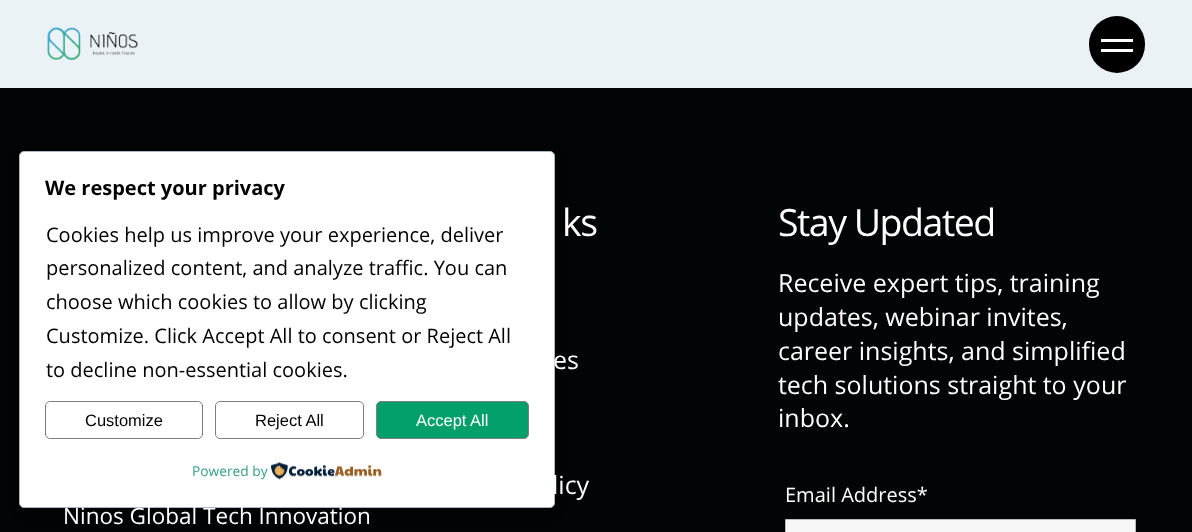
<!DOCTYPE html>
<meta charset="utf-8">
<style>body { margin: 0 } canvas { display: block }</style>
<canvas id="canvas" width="1192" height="532"></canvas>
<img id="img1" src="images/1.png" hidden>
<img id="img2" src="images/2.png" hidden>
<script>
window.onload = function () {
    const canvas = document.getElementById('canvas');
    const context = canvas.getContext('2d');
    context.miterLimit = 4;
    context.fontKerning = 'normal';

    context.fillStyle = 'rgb(2, 5, 5)';
    context.fillRect(0, 0, 1192, 532);
    context.fillStyle = 'rgb(235, 242, 245)';
    context.fillRect(0, 0, 1192, 88);
    context.drawImage(document.getElementById('img1'), 47, 27, 91, 33);
    context.fillStyle = 'rgb(0, 0, 0)';
    context.beginPath();
    context.roundRect(1089, 16, 56, 57, 28);
    context.fill();
    context.fillStyle = 'rgb(255, 255, 255)';
    context.fillRect(1101, 39, 32, 3);
    context.fillRect(1101, 49, 32, 3);
    context.fillStyle = 'rgba(0, 0, 0, 0.2)';
    context.filter = 'blur(6px)';
    context.beginPath();
    context.roundRect(20, 155, 536, 356, 5);
    context.fill();
    context.filter = 'none';
    context.fillStyle = 'rgb(255, 255, 255)';
    context.beginPath();
    context.roundRect(19.5, 151.5, 535, 356, 4.5);
    context.fill();
    context.strokeStyle = 'rgb(171, 184, 195)';
    context.stroke();
    context.beginPath();
    context.roundRect(45.5, 401.5, 157, 37, 4.5);
    context.strokeStyle = 'rgb(128, 128, 128)';
    context.stroke();
    context.beginPath();
    context.roundRect(215.5, 401.5, 148, 37, 4.5);
    context.stroke();
    context.fillStyle = 'rgb(3, 160, 108)';
    context.beginPath();
    context.roundRect(376.5, 401.5, 152, 37, 4.5);
    context.fill();
    context.stroke();
    context.drawImage(document.getElementById('img2'), 271, 462, 111, 18);
    context.fillStyle = 'rgb(247, 247, 247)';
    context.beginPath();
    context.rect(785.5, 519.5, 350, 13);
    context.fill();
    context.strokeStyle = 'rgb(187, 187, 187)';
    context.stroke();
    context.font = 'bold 20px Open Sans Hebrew';
    context.fillStyle = 'rgb(0, 0, 0)';
    context.fillText('We respect your privacy', 45, 195);
    context.font = '20px Open Sans Hebrew';
    context.fillText('Cookies help us improve your experience, deliver', 46, 242);
    context.fillText('personalized content, and analyze traffic. You can', 46, 275);
    context.fillText('choose which cookies to allow by clicking', 46, 309);
    context.fillText('Customize. Click Accept All to consent or Reject All', 46, 343);
    context.fillText('to decline non-essential cookies.', 46, 377);
    context.font = '16.5px Liberation Sans';
    context.fillText('Customize', 85, 426);
    context.fillText('Reject All', 255, 426);
    context.fillStyle = 'rgb(255, 255, 255)';
    context.fillText('Accept All', 416, 426);
    context.font = '13.75px Open Sans Hebrew';
    context.fillStyle = 'rgb(52, 156, 140)';
    context.fillText('Powered by', 192, 476);
    context.letterSpacing = '-1.5px';
    context.font = '37.5px Open Sans Hebrew';
    context.fillStyle = 'rgb(255, 255, 255)';
    context.fillText('ks', 562, 236);
    context.letterSpacing = '0px';
    context.font = '25px Open Sans Hebrew';
    context.fillText('es', 553, 369);
    context.fillText('licy', 552, 494);
    context.letterSpacing = '-1.5px';
    context.font = '37.5px Open Sans Hebrew';
    context.fillText('Stay Updated', 778, 236);
    context.letterSpacing = '0px';
    context.font = '25px Open Sans Hebrew';
    context.fillText('Receive expert tips, training', 778, 292);
    context.fillText('updates, webinar invites,', 778, 326);
    context.fillText('career insights, and simplified', 778, 360);
    context.fillText('tech solutions straight to your', 778, 394);
    context.fillText('inbox.', 778, 427);
    context.font = '20px Open Sans Hebrew';
    context.fillText('Email Address*', 785, 502);
    context.font = '22.5px Open Sans Hebrew';
    context.fillText('Ninos Global Tech Innovation', 63, 524);
};
</script>
